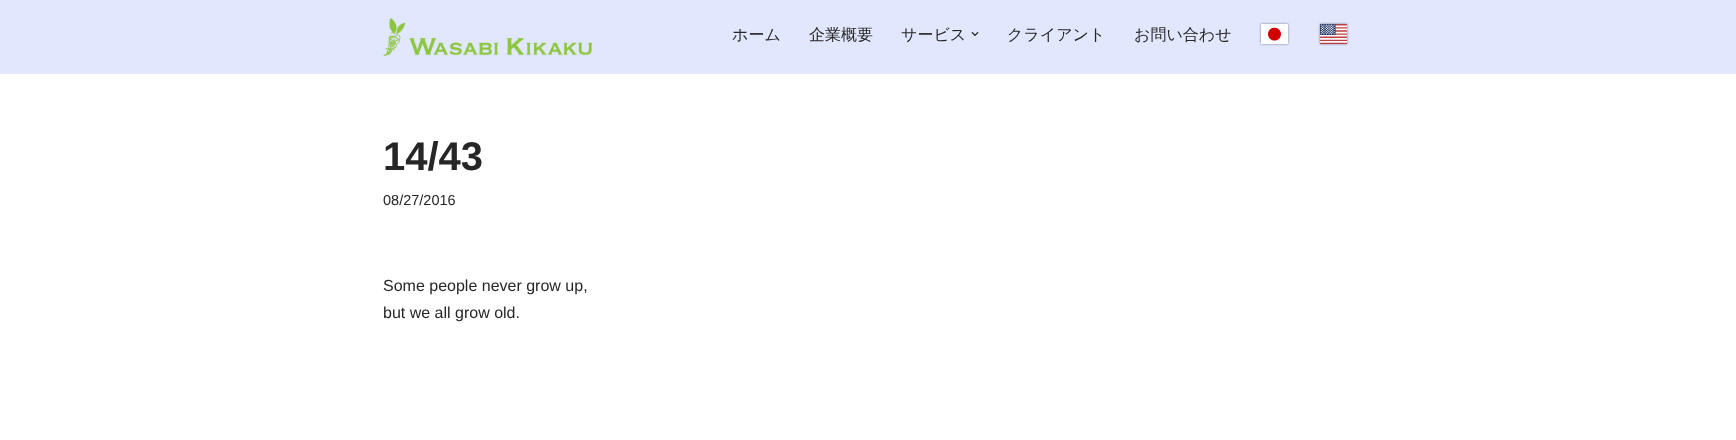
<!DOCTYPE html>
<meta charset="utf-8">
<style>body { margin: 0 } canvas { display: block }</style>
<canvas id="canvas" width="1736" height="440"></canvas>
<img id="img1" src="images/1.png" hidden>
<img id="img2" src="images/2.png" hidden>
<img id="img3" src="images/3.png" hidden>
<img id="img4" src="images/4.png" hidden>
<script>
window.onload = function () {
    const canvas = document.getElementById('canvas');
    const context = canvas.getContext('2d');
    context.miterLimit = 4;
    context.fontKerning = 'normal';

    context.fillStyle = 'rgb(255, 255, 255)';
    context.fillRect(0, 0, 1736, 440);
    context.fillStyle = 'rgb(225, 231, 253)';
    context.fillRect(0, 0, 1736, 74);
    context.drawImage(document.getElementById('img1'), 383, 18, 209, 38);
    context.drawImage(document.getElementById('img2'), 971, 32, 8, 4);
    context.drawImage(document.getElementById('img3'), 1259, 22, 31, 24);
    context.drawImage(document.getElementById('img4'), 1318, 22, 31, 24);
    context.font = '500 16px WenQuanYi Zen Hei';
    context.fillStyle = 'rgb(39, 38, 38)';
    context.fillText('ホーム', 732, 40);
    context.fillText('企業概要', 809, 40);
    context.fillText('サービス', 901, 40);
    context.fillText('クライアント', 1007, 40);
    context.fillText('お問い合わせ', 1134, 40);
    context.font = 'bold 40px Liberation Sans';
    context.fillText('14/43', 383, 170);
    context.font = '14.5px Liberation Sans';
    context.fillText('08/27/2016', 383, 205);
    context.font = '16px Liberation Sans';
    context.fillText('Some people never grow up,', 383, 291);
    context.fillText('but we all grow old.', 383, 318);
};
</script>
